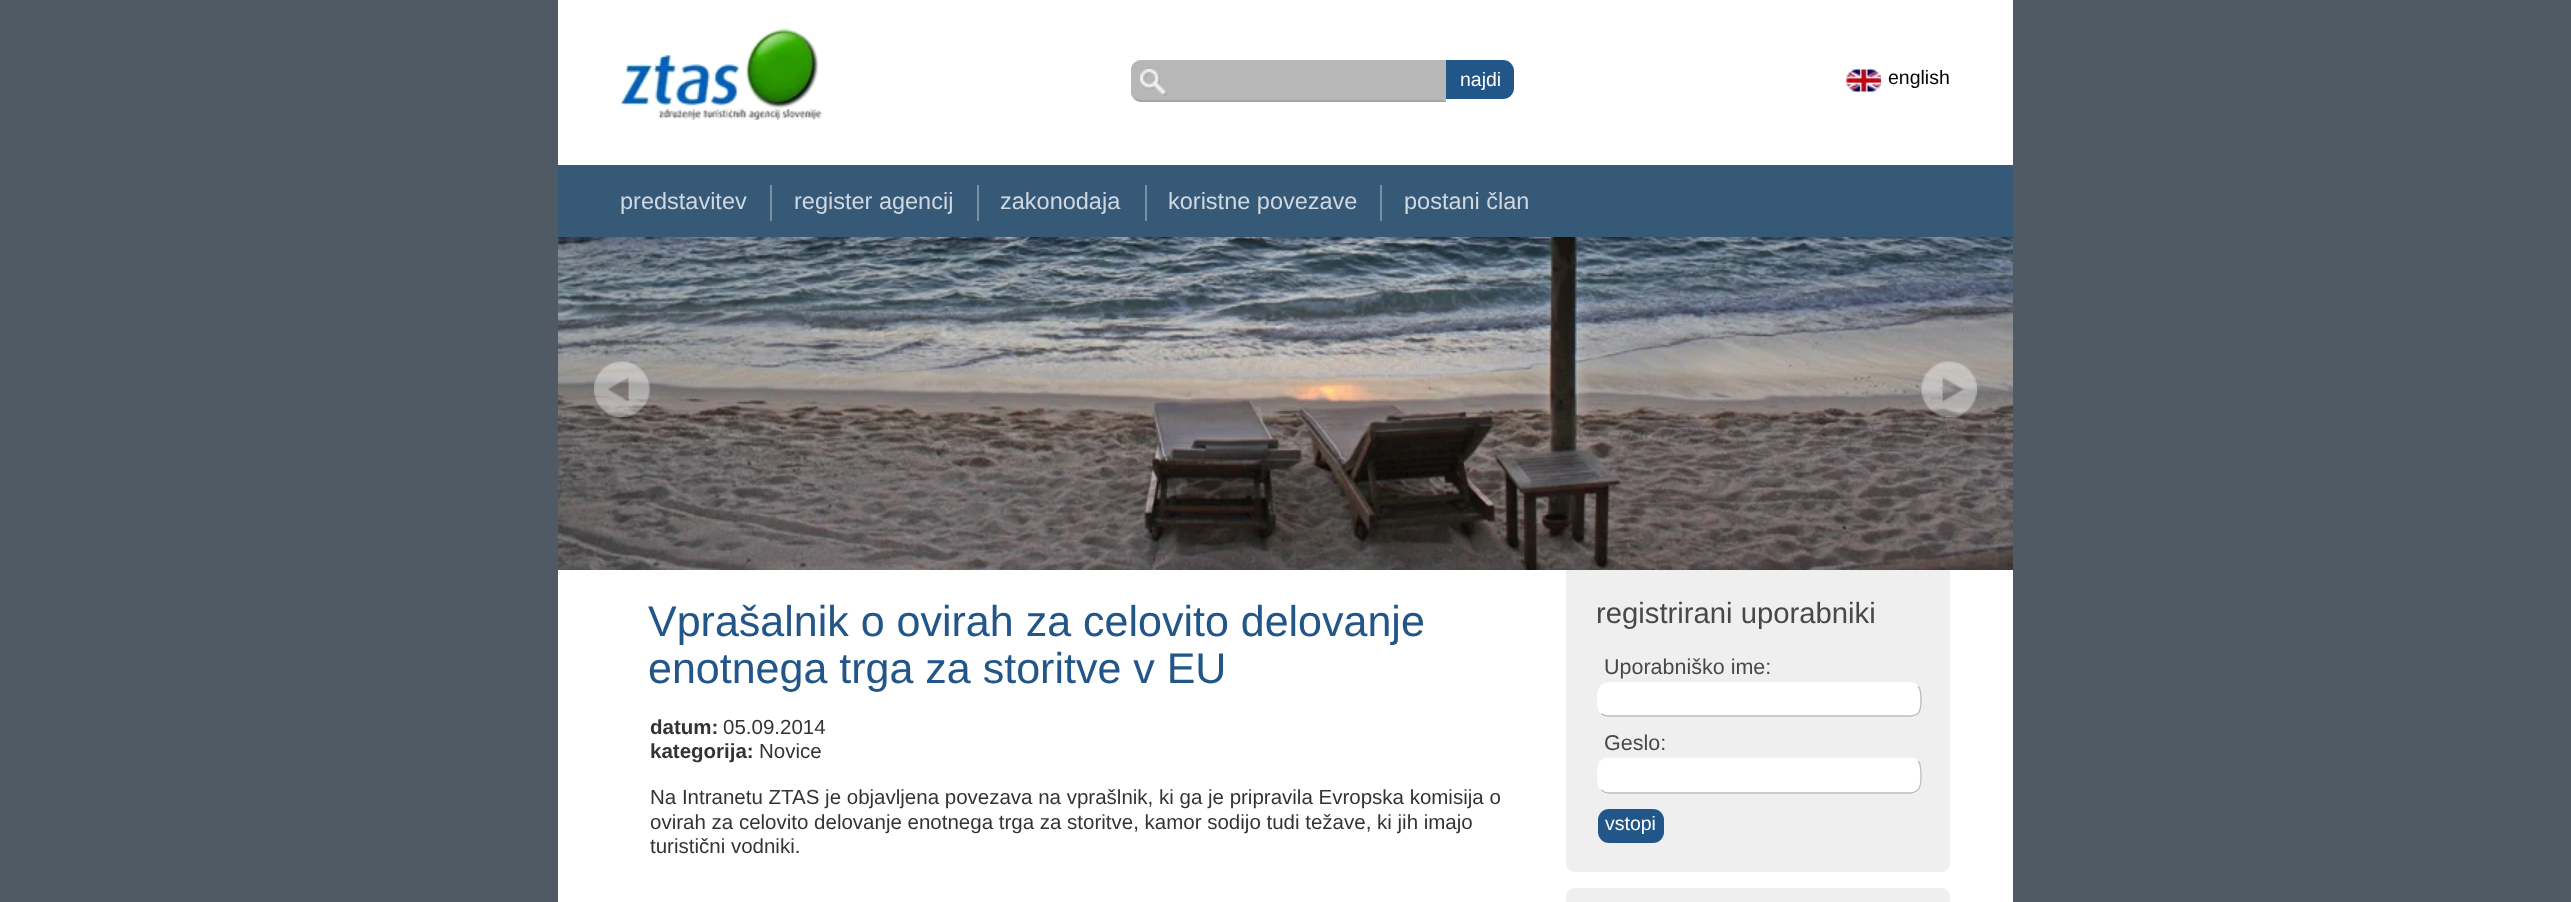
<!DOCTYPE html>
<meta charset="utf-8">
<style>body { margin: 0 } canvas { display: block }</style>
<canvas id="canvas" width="2571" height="902"></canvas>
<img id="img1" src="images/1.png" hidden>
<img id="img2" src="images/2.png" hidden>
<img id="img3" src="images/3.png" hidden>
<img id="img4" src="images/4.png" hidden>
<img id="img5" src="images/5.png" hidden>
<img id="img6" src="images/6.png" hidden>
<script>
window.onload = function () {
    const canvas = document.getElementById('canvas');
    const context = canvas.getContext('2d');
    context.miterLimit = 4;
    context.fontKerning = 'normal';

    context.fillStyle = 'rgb(80, 90, 100)';
    context.fillRect(0, 0, 2571, 902);
    context.fillStyle = 'rgb(255, 255, 255)';
    context.fillRect(558, 0, 1455, 902);
    context.drawImage(document.getElementById('img1'), 620, 28, 203, 92);
    context.fillStyle = 'rgb(183, 183, 183)';
    context.beginPath();
    context.roundRect(1131, 60, 315, 42, [11, 0, 0, 11]);
    context.fill();
    context.drawImage(document.getElementById('img2'), 1140, 69, 27, 27);
    context.beginPath();
    context.moveTo(1142, 60);
    context.bezierCurveTo(1139, 60, 1136, 61, 1134, 63);
    context.lineTo(1135, 64);
    context.bezierCurveTo(1137, 63, 1140, 62, 1142, 62);
    context.lineTo(1444, 62);
    context.lineTo(1446, 60);
    context.closePath();
    context.fill();
    context.fillStyle = 'rgb(165, 165, 165)';
    context.beginPath();
    context.moveTo(1446, 102);
    context.lineTo(1444, 100);
    context.lineTo(1142, 100);
    context.bezierCurveTo(1140, 100, 1137, 99, 1135, 98);
    context.lineTo(1134, 99);
    context.bezierCurveTo(1136, 101, 1139, 102, 1142, 102);
    context.closePath();
    context.fill();
    context.fillStyle = 'rgb(183, 183, 183)';
    context.beginPath();
    context.moveTo(1131, 70);
    context.lineTo(1131, 92);
    context.bezierCurveTo(1131, 94.5, 1132, 97, 1134, 99);
    context.lineTo(1135.5, 97.5);
    context.bezierCurveTo(1133.5, 96, 1132, 94, 1132, 92);
    context.lineTo(1132, 70);
    context.bezierCurveTo(1132, 68, 1133.5, 66, 1135.5, 64.5);
    context.lineTo(1134, 63);
    context.bezierCurveTo(1132, 65, 1131, 67.5, 1131, 70);
    context.closePath();
    context.fill();
    context.fillStyle = 'rgb(34, 85, 136)';
    context.beginPath();
    context.roundRect(1446, 60, 68, 39, [0, 11, 11, 0]);
    context.fill();
    context.drawImage(document.getElementById('img3'), 1846, 69, 35, 23);
    context.fillStyle = 'rgb(55, 89, 120)';
    context.fillRect(558, 165, 1455, 72);
    context.fillStyle = 'rgb(121, 144, 164)';
    context.fillRect(770, 185, 2, 36);
    context.fillRect(977, 185, 2, 36);
    context.fillRect(1145, 185, 2, 36);
    context.fillRect(1380, 185, 2, 36);
    context.fillStyle = 'rgb(239, 239, 239)';
    context.beginPath();
    context.roundRect(1566, 560, 384, 312, 9);
    context.fill();
    context.drawImage(document.getElementById('img4'), 558, 237, 1455, 333);
    context.drawImage(document.getElementById('img5'), 594, 361, 56, 56);
    context.drawImage(document.getElementById('img6'), 1921, 361, 56, 56);
    context.fillStyle = 'rgb(255, 255, 255)';
    context.beginPath();
    context.roundRect(1598, 683, 324, 34, 11);
    context.fill();
    context.beginPath();
    context.moveTo(1918, 686);
    context.bezierCurveTo(1921.5, 690, 1921, 695, 1921, 700);
    context.bezierCurveTo(1921, 704.5, 1921.5, 709.5, 1918, 713.5);
    context.strokeStyle = 'rgb(191, 191, 191)';
    context.lineWidth = 1.5;
    context.stroke();
    context.beginPath();
    context.moveTo(1918, 713.5);
    context.bezierCurveTo(1916, 715, 1913.5, 716, 1911, 716);
    context.lineTo(1608, 716);
    context.bezierCurveTo(1605.5, 716, 1603, 715, 1601, 713.5);
    context.strokeStyle = 'rgb(187, 187, 187)';
    context.stroke();
    context.beginPath();
    context.moveTo(1601, 713.5);
    context.bezierCurveTo(1599.5, 711.5, 1598, 709, 1598, 706.5);
    context.lineTo(1598, 693);
    context.bezierCurveTo(1598, 690.5, 1599.5, 688, 1601, 686);
    context.bezierCurveTo(1603, 684.5, 1605.5, 683, 1608, 683);
    context.lineTo(1911, 683);
    context.bezierCurveTo(1913.5, 683, 1916, 684.5, 1918, 686);
    context.strokeStyle = 'rgb(255, 255, 255)';
    context.stroke();
    context.beginPath();
    context.roundRect(1598, 758, 324, 36, 11);
    context.fill();
    context.beginPath();
    context.moveTo(1918, 761);
    context.bezierCurveTo(1921.5, 765, 1921, 770.5, 1921, 775.5);
    context.bezierCurveTo(1921, 780.5, 1921.5, 786, 1918, 790);
    context.strokeStyle = 'rgb(191, 191, 191)';
    context.stroke();
    context.beginPath();
    context.moveTo(1918, 790);
    context.bezierCurveTo(1916, 791.5, 1913.5, 793, 1911, 793);
    context.lineTo(1608, 793);
    context.bezierCurveTo(1605.5, 793, 1603, 791.5, 1601, 790);
    context.strokeStyle = 'rgb(187, 187, 187)';
    context.stroke();
    context.beginPath();
    context.moveTo(1601, 790);
    context.bezierCurveTo(1597.5, 786, 1598, 780.5, 1598, 775.5);
    context.bezierCurveTo(1598, 768.5, 1597.5, 759, 1607, 758.5);
    context.lineTo(1912, 758.5);
    context.bezierCurveTo(1914, 758.5, 1916.5, 759.5, 1918, 761);
    context.strokeStyle = 'rgb(255, 255, 255)';
    context.stroke();
    context.fillStyle = 'rgb(34, 85, 136)';
    context.beginPath();
    context.roundRect(1598, 809, 66, 34, 11);
    context.fill();
    context.fillStyle = 'rgb(239, 239, 239)';
    context.beginPath();
    context.roundRect(1566, 888, 384, 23, 9);
    context.fill();
    context.font = '19.5px Liberation Sans';
    context.fillStyle = 'rgb(255, 255, 255)';
    context.fillText('najdi', 1460, 86);
    context.fillStyle = 'rgb(0, 0, 0)';
    context.fillText('english', 1888, 84);
    context.font = '23.5px Liberation Sans';
    context.fillStyle = 'rgb(207, 216, 223)';
    context.fillText('predstavitev', 620, 209);
    context.fillText('register agencij', 794, 209);
    context.fillText('zakonodaja', 1000, 209);
    context.fillText('koristne povezave', 1168, 209);
    context.fillText('postani član', 1404, 209);
    context.font = '43px Liberation Sans';
    context.fillStyle = 'rgb(34, 85, 136)';
    context.fillText('Vprašalnik o ovirah za celovito delovanje', 648, 636);
    context.fillText('enotnega trga za storitve v EU', 648, 683);
    context.font = 'bold 20.5px Liberation Sans';
    context.fillStyle = 'rgb(51, 51, 51)';
    context.fillText('datum:', 650, 734);
    context.font = '20.5px Liberation Sans';
    context.fillText('05.09.2014', 723, 734);
    context.font = 'bold 20.5px Liberation Sans';
    context.fillText('kategorija:', 650, 758);
    context.font = '20.5px Liberation Sans';
    context.fillText('Novice', 759, 758);
    context.fillText('Na Intranetu ZTAS je objavljena povezava na vprašlnik, ki ga je pripravila Evropska komisija o', 650, 804);
    context.fillText('ovirah za celovito delovanje enotnega trga za storitve, kamor sodijo tudi težave, ki jih imajo', 650, 829);
    context.fillText('turistični vodniki.', 650, 853);
    context.font = '29.25px Liberation Sans';
    context.fillStyle = 'rgb(72, 72, 72)';
    context.fillText('registrirani uporabniki', 1596, 623);
    context.font = '21.5px Liberation Sans';
    context.fillText('Uporabniško ime:', 1604, 674);
    context.fillText('Geslo:', 1604, 750);
    context.font = '19.5px Liberation Sans';
    context.fillStyle = 'rgb(255, 255, 255)';
    context.fillText('vstopi', 1605, 830);
};
</script>
